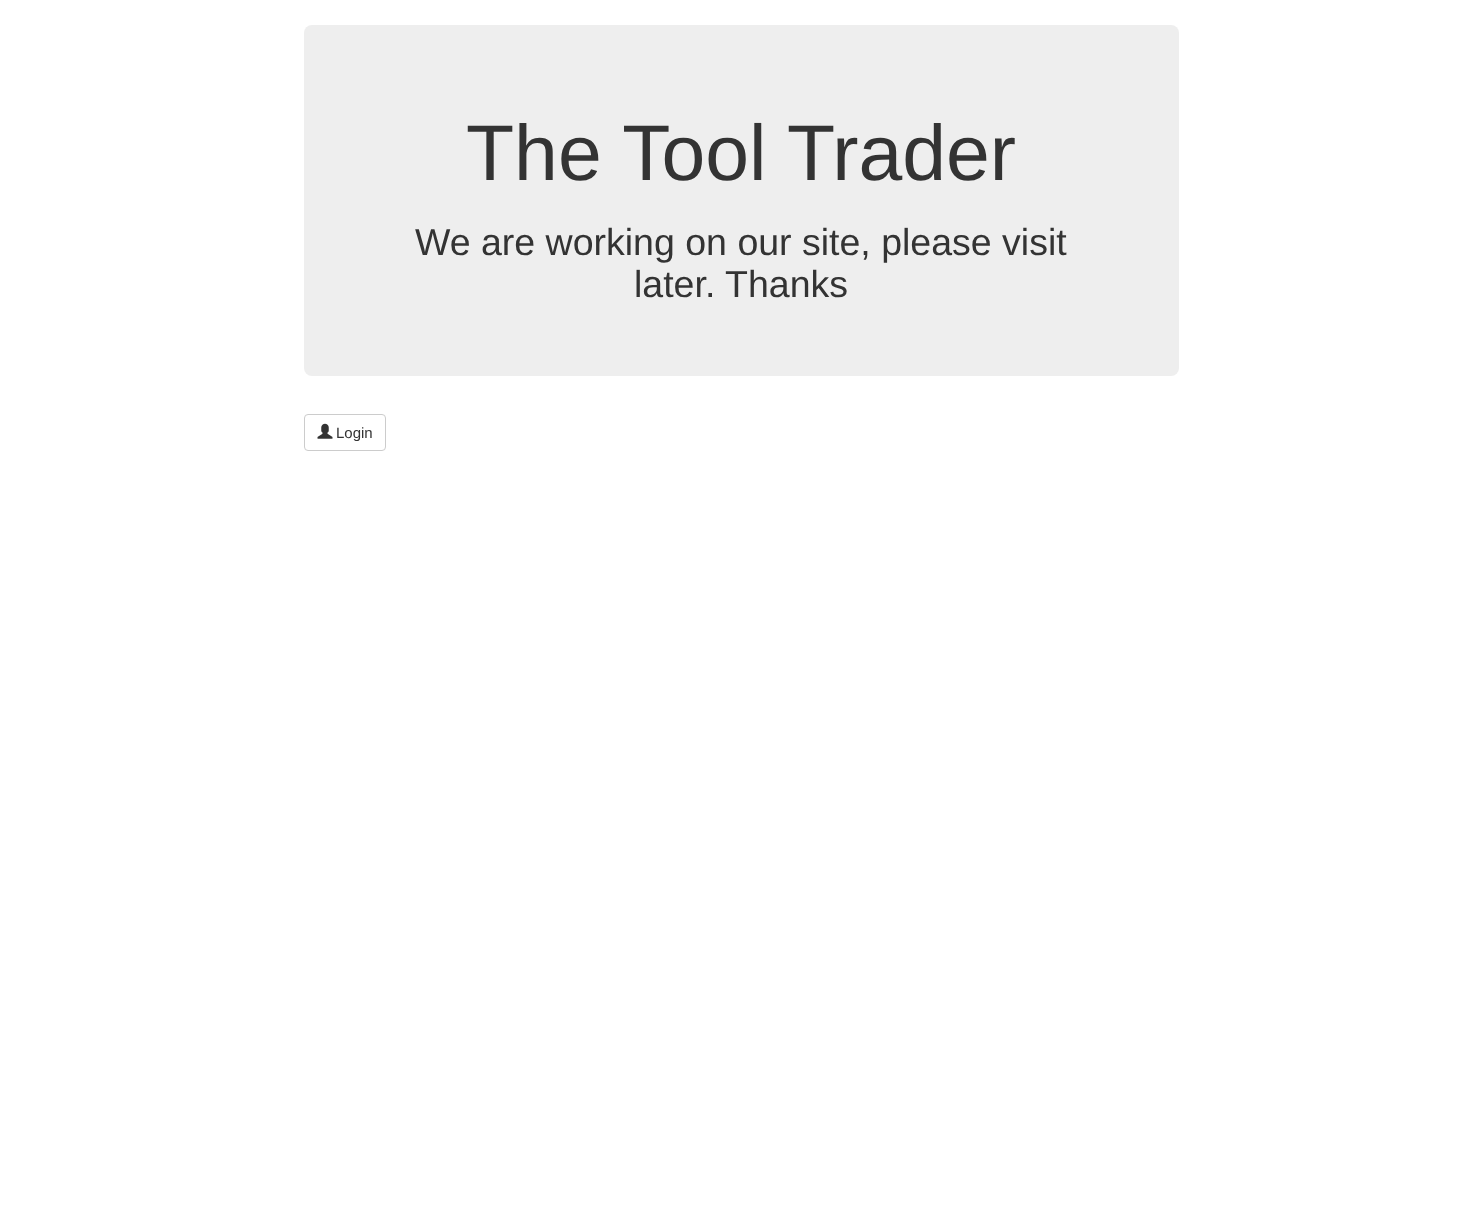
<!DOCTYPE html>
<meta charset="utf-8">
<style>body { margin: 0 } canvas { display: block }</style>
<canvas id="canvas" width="1481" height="1230"></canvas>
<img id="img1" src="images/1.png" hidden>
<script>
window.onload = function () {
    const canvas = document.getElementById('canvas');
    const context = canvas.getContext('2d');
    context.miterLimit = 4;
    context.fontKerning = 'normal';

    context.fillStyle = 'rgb(255, 255, 255)';
    context.fillRect(0, 0, 1481, 1230);
    context.fillStyle = 'rgb(238, 238, 238)';
    context.beginPath();
    context.roundRect(304, 25, 875, 351, 8);
    context.fill();
    context.beginPath();
    context.roundRect(304.5, 414.5, 81, 36, 3.5);
    context.strokeStyle = 'rgb(204, 204, 204)';
    context.stroke();
    context.drawImage(document.getElementById('img1'), 317, 423, 16, 16);
    context.font = '78.75px Liberation Sans';
    context.fillStyle = 'rgb(51, 51, 51)';
    context.fillText('The Tool Trader', 466, 180);
    context.font = '37.5px Liberation Sans';
    context.fillText('We are working on our site, please visit', 415, 255);
    context.fillText('later. Thanks', 634, 297);
    context.font = '15px Liberation Sans';
    context.fillText('Login', 336, 438);
};
</script>
